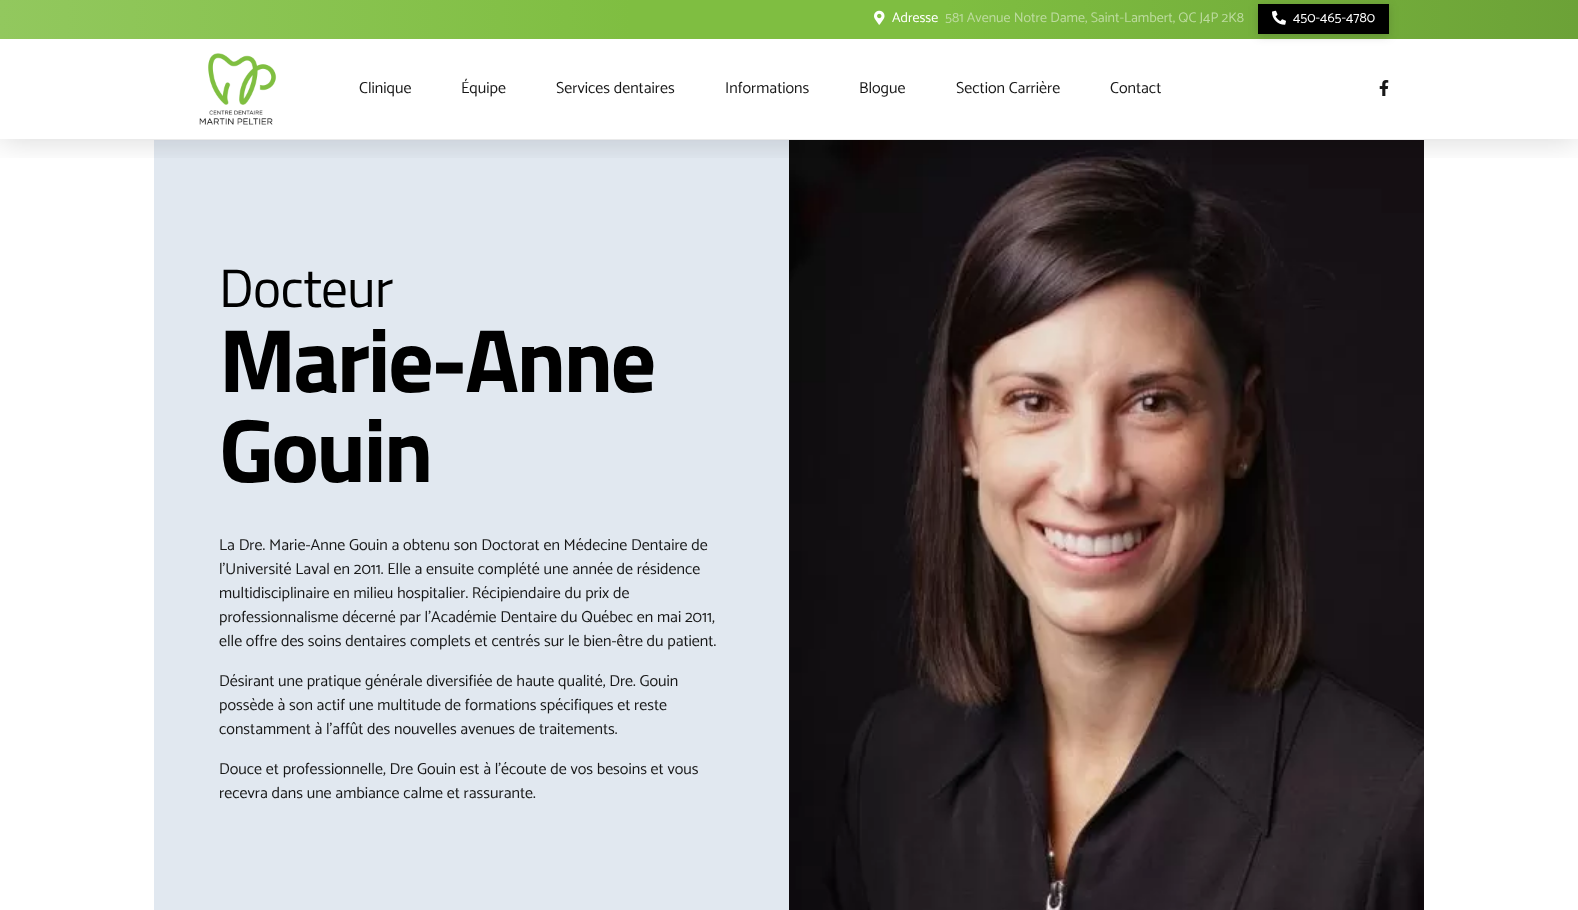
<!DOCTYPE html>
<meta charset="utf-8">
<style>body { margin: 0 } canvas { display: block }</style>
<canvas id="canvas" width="1578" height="910"></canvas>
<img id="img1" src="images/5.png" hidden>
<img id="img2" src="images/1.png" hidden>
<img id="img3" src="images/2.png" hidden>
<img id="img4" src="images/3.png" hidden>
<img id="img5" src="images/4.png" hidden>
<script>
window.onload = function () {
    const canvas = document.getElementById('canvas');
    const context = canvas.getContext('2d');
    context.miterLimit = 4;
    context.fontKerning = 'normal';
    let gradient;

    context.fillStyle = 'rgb(255, 255, 255)';
    context.fillRect(0, 0, 1578, 910);
    context.fillStyle = 'rgb(225, 232, 240)';
    context.fillRect(154, 140, 635, 770);
    context.drawImage(document.getElementById('img1'), 789, 140, 635, 770);
    context.save();
    context.beginPath();
    context.rect(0, 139, 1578, 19);
    context.clip();
    context.fillStyle = 'rgba(0, 0, 0, 0.15)';
    context.filter = 'blur(15px)';
    context.beginPath();
    context.rect(0, 2, 1578, 139);
    context.fill();
    context.filter = 'none';
    context.restore();
    gradient = context.createLinearGradient(0, 20, 1578, 19);
    gradient.addColorStop(0, 'rgb(146, 200, 94)');
    gradient.addColorStop(0.4, 'rgb(127, 190, 65)');
    gradient.addColorStop(0.6, 'rgb(127, 190, 65)');
    gradient.addColorStop(1, 'rgb(108, 162, 55)');
    context.fillStyle = gradient;
    context.fillRect(0, 0, 1578, 39);
    context.drawImage(document.getElementById('img2'), 874, 10, 11, 15);
    context.fillStyle = 'rgba(34, 34, 34, 0.2)';
    context.filter = 'blur(5px)';
    context.beginPath();
    context.rect(1258, 6, 131, 30);
    context.fill();
    context.filter = 'none';
    context.fillStyle = 'rgb(0, 0, 0)';
    context.fillRect(1258, 4, 131, 30);
    context.drawImage(document.getElementById('img3'), 1272, 10, 14, 15);
    context.drawImage(document.getElementById('img4'), 199, 53, 78, 72);
    context.drawImage(document.getElementById('img5'), 1379, 80, 10, 16);
    context.font = '14px Catamaran';
    context.fillStyle = 'rgb(255, 255, 255)';
    context.fillText('Adresse', 892, 22);
    context.fillStyle = 'rgb(189, 219, 159)';
    context.fillText('581 Avenue Notre Dame, Saint-Lambert, QC J4P 2K8', 945, 22);
    context.fillStyle = 'rgb(255, 255, 255)';
    context.fillText('450-465-4780', 1293, 22);
    context.font = '16px Catamaran';
    context.fillStyle = 'rgb(24, 24, 24)';
    context.fillText('Clinique', 359, 93);
    context.fillText('Équipe', 461, 93);
    context.fillText('Services dentaires', 556, 93);
    context.fillText('Informations', 725, 93);
    context.fillText('Blogue', 859, 93);
    context.fillText('Section Carrière', 956, 93);
    context.fillText('Contact', 1110, 93);
    context.letterSpacing = '-1px';
    context.font = '54px Titillium Web';
    context.fillStyle = 'rgb(0, 0, 0)';
    context.fillText('Docteur', 219, 307);
    context.letterSpacing = '-2.75px';
    context.font = 'bold 90px Titillium Web';
    context.fillText('Marie-Anne', 219, 392);
    context.fillText('Gouin', 219, 482);
    context.letterSpacing = '0px';
    context.font = '16px Catamaran';
    context.fillStyle = 'rgb(24, 24, 24)';
    context.fillText('La Dre. Marie-Anne Gouin a obtenu son Doctorat en Médecine Dentaire de', 219, 550);
    context.fillText('l’Université Laval en 2011. Elle a ensuite complété une année de résidence', 219, 574);
    context.fillText('multidisciplinaire en milieu hospitalier. Récipiendaire du prix de', 219, 598);
    context.fillText('professionnalisme décerné par l’Académie Dentaire du Québec en mai 2011,', 219, 622);
    context.fillText('elle offre des soins dentaires complets et centrés sur le bien-être du patient.', 219, 646);
    context.fillText('Désirant une pratique générale diversifiée de haute qualité, Dre. Gouin', 219, 686);
    context.fillText('possède à son actif une multitude de formations spécifiques et reste', 219, 710);
    context.fillText('constamment à l’affût des nouvelles avenues de traitements.', 219, 734);
    context.fillText('Douce et professionnelle, Dre Gouin est à l’écoute de vos besoins et vous', 219, 774);
    context.fillText('recevra dans une ambiance calme et rassurante.', 219, 798);
};
</script>
